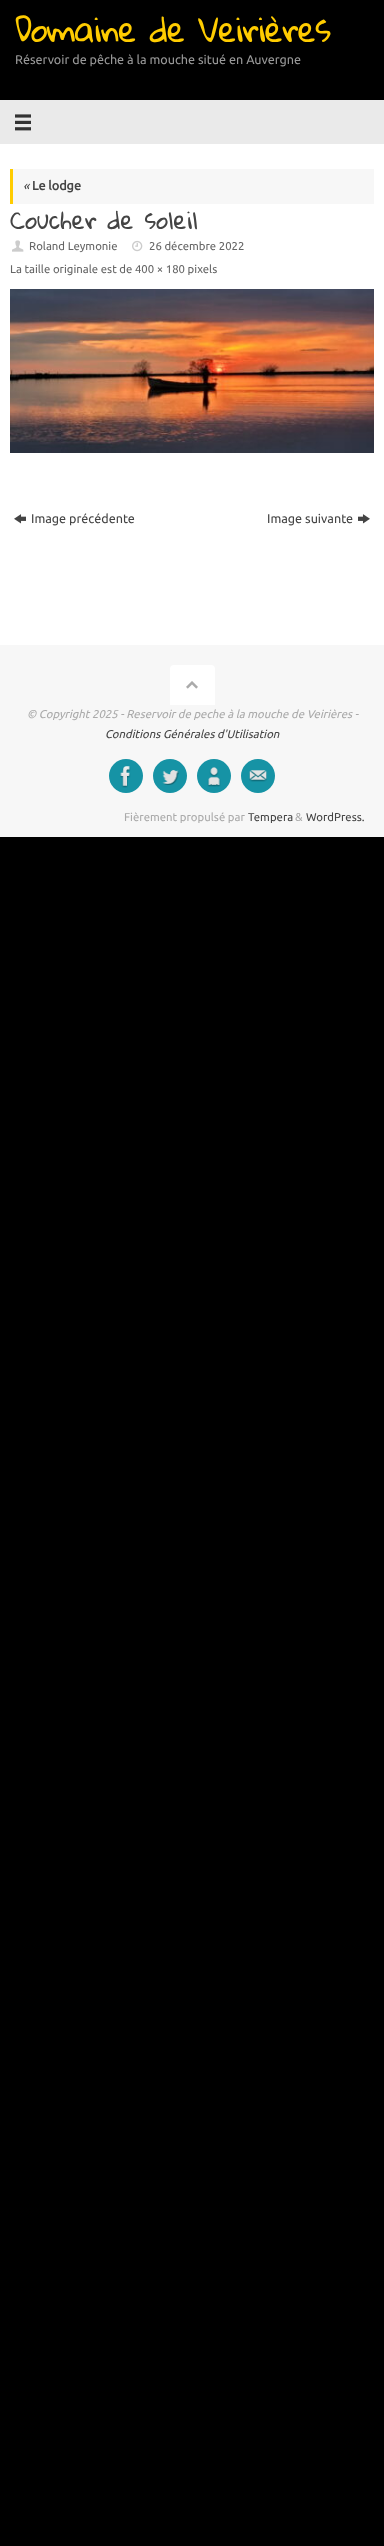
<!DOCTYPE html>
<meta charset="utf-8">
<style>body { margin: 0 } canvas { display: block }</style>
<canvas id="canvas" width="384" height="2546"></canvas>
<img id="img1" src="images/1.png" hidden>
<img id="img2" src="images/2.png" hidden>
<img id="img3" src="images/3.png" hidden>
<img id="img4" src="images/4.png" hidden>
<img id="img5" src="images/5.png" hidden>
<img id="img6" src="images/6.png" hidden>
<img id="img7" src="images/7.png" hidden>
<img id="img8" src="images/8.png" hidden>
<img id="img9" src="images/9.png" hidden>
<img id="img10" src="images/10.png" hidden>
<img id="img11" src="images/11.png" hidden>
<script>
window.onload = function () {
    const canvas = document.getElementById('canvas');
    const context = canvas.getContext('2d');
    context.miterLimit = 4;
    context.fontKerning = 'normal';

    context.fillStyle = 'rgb(0, 0, 0)';
    context.fillRect(0, 0, 384, 2546);
    context.fillStyle = 'rgb(234, 234, 234)';
    context.fillRect(0, 100, 384, 44);
    context.drawImage(document.getElementById('img1'), 15, 114, 16, 17);
    context.fillStyle = 'rgb(255, 255, 255)';
    context.fillRect(0, 144, 384, 501);
    context.fillStyle = 'rgb(247, 247, 247)';
    context.fillRect(13, 169, 361, 35);
    context.fillStyle = 'rgb(255, 204, 0)';
    context.fillRect(10, 169, 3, 35);
    context.drawImage(document.getElementById('img2'), 12, 240, 12, 12);
    context.drawImage(document.getElementById('img3'), 132, 240, 11, 12);
    context.drawImage(document.getElementById('img4'), 10, 289, 364, 164);
    context.drawImage(document.getElementById('img5'), 14, 514, 12, 10);
    context.drawImage(document.getElementById('img6'), 358, 514, 12, 10);
    context.fillStyle = 'rgb(247, 247, 247)';
    context.fillRect(0, 645, 384, 192);
    context.fillStyle = 'rgb(255, 255, 255)';
    context.beginPath();
    context.roundRect(170, 665, 45, 40, [4, 4, 0, 0]);
    context.fill();
    context.drawImage(document.getElementById('img7'), 186, 681, 12, 8);
    context.fillStyle = 'rgb(22, 147, 165)';
    context.beginPath();
    context.arc(126, 776, 17, 0, 2 * Math.PI);
    context.fill();
    context.drawImage(document.getElementById('img8'), 120, 766, 11, 22);
    context.beginPath();
    context.arc(170, 776, 17, 0, 2 * Math.PI);
    context.fill();
    context.drawImage(document.getElementById('img9'), 162, 770, 17, 15);
    context.beginPath();
    context.arc(214, 776, 17, 0, 2 * Math.PI);
    context.fill();
    context.drawImage(document.getElementById('img10'), 207, 767, 14, 20);
    context.beginPath();
    context.arc(258, 776, 17, 0, 2 * Math.PI);
    context.fill();
    context.drawImage(document.getElementById('img11'), 249, 770, 18, 12);
    context.letterSpacing = '-1px';
    context.font = '33.5px Gloria Hallelujah';
    context.fillStyle = 'rgb(255, 204, 0)';
    context.fillText('Domaine de Veirières', 15, 42);
    context.letterSpacing = '0px';
    context.font = '12.6px Ubuntu';
    context.fillStyle = 'rgb(153, 153, 153)';
    context.fillText('Réservoir de pêche à la mouche situé en Auvergne', 15, 64);
    context.font = 'italic 12.6px Ubuntu';
    context.fillStyle = 'rgb(68, 68, 68)';
    context.fillText('«', 23, 190);
    context.font = 'bold 12.6px Ubuntu';
    context.fillText('Le lodge', 32, 190);
    context.font = '24px Gloria Hallelujah';
    context.fillText('Coucher de soleil', 10, 229);
    context.font = '11.35px Ubuntu';
    context.fillStyle = 'rgb(102, 102, 102)';
    context.fillText('Roland Leymonie', 29, 250);
    context.fillText('26 décembre 2022', 149, 250);
    context.fillText('La taille originale est de 400 × 180 pixels', 10, 273);
    context.font = '12.6px Ubuntu';
    context.fillStyle = 'rgb(68, 68, 68)';
    context.fillText('Image précédente', 31, 523);
    context.fillText('Image suivante', 267, 523);
    context.font = 'italic 11.35px Ubuntu';
    context.fillStyle = 'rgb(170, 170, 170)';
    context.fillText('© Copyright 2025 - Reservoir de peche à la mouche de Veirières -', 27, 718);
    context.fillStyle = 'rgb(68, 68, 68)';
    context.fillText('Conditions Générales d\'Utilisation', 105, 738);
    context.font = '11.35px Ubuntu';
    context.fillStyle = 'rgb(170, 170, 170)';
    context.fillText('Fièrement propulsé par', 124, 821);
    context.fillStyle = 'rgb(68, 68, 68)';
    context.fillText('Tempera', 248, 821);
    context.fillStyle = 'rgb(170, 170, 170)';
    context.fillText('&', 295, 821);
    context.fillStyle = 'rgb(68, 68, 68)';
    context.fillText('WordPress.', 306, 821);
};
</script>
